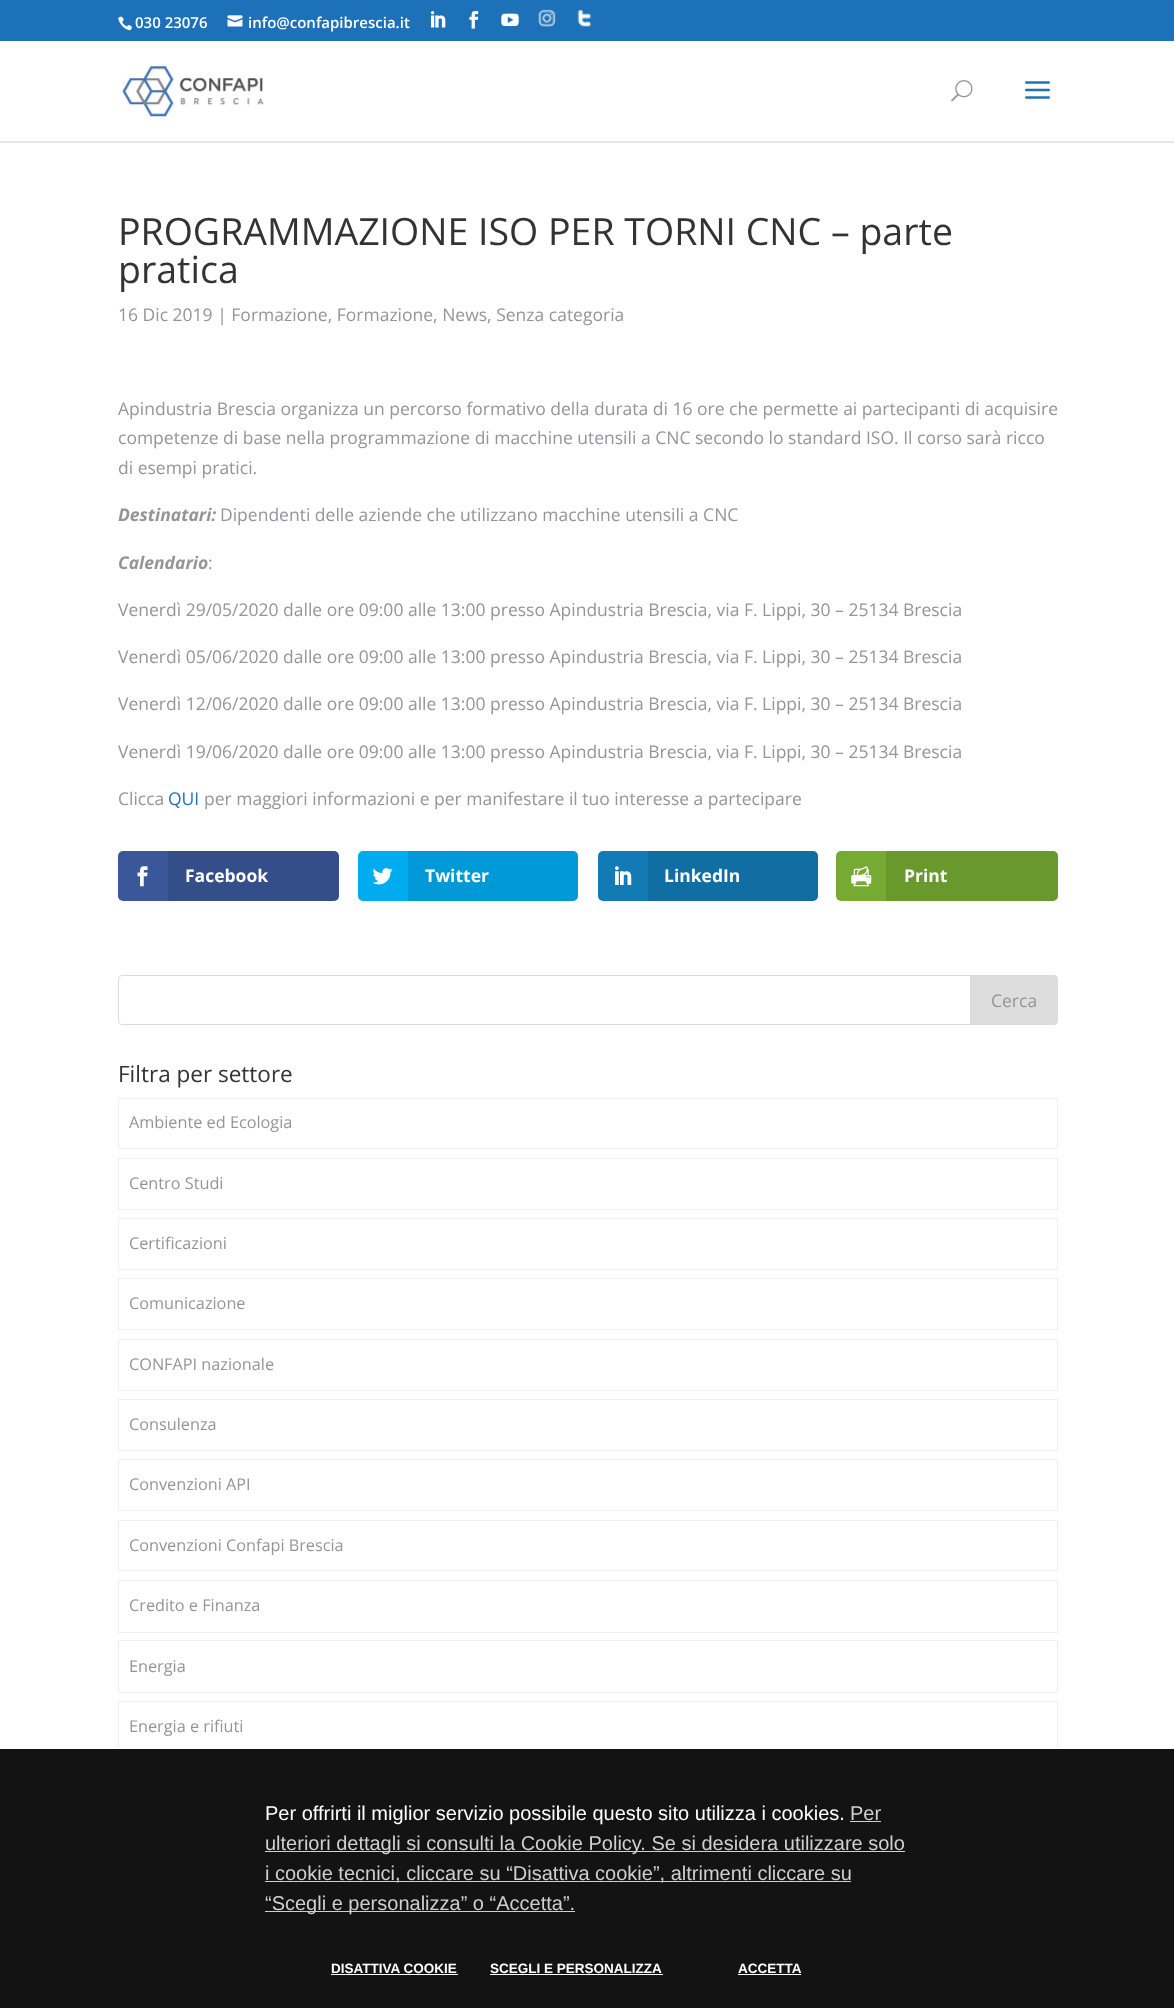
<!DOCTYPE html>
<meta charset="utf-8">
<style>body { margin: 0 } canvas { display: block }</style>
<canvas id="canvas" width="1174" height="2008"></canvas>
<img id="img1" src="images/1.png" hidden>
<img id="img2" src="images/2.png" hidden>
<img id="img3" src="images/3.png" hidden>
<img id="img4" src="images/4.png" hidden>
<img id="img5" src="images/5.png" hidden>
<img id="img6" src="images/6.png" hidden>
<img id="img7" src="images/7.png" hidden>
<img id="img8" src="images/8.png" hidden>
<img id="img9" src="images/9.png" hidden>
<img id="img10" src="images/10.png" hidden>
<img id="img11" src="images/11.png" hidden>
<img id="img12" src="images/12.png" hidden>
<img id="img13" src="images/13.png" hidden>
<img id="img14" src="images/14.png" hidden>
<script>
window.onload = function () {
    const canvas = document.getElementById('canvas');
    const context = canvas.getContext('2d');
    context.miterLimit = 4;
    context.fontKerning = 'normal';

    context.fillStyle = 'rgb(255, 255, 255)';
    context.fillRect(0, 0, 1174, 2008);
    context.fillStyle = 'rgb(29, 113, 184)';
    context.fillRect(0, 0, 1174, 41);
    context.drawImage(document.getElementById('img1'), 118, 16, 14, 15);
    context.drawImage(document.getElementById('img2'), 227, 15, 16, 12);
    context.drawImage(document.getElementById('img3'), 430, 11, 16, 17);
    context.drawImage(document.getElementById('img4'), 469, 11, 10, 18);
    context.drawImage(document.getElementById('img5'), 501, 13, 18, 14);
    context.drawImage(document.getElementById('img6'), 538, 9, 18, 18);
    context.drawImage(document.getElementById('img7'), 577, 9, 15, 18);
    context.fillStyle = 'rgb(230, 230, 230)';
    context.fillRect(0, 141, 1174, 2);
    context.drawImage(document.getElementById('img8'), 122, 66, 142, 51);
    context.drawImage(document.getElementById('img9'), 951, 80, 22, 22);
    context.drawImage(document.getElementById('img10'), 1025, 81, 25, 18);
    context.fillStyle = 'rgb(58, 87, 154)';
    context.beginPath();
    context.roundRect(118, 851, 221, 50, 5);
    context.fill();
    context.drawImage(document.getElementById('img11'), 137, 866, 11, 21);
    context.fillStyle = 'rgba(0, 0, 0, 0.1)';
    context.beginPath();
    context.roundRect(168, 851, 171, 50, [0, 5, 5, 0]);
    context.fill();
    context.fillStyle = 'rgb(0, 171, 240)';
    context.beginPath();
    context.roundRect(358, 851, 220, 50, 5);
    context.fill();
    context.drawImage(document.getElementById('img12'), 372, 868, 21, 17);
    context.fillStyle = 'rgba(0, 0, 0, 0.1)';
    context.beginPath();
    context.roundRect(408, 851, 170, 50, [0, 5, 5, 0]);
    context.fill();
    context.fillStyle = 'rgb(18, 123, 182)';
    context.beginPath();
    context.roundRect(598, 851, 220, 50, 5);
    context.fill();
    context.drawImage(document.getElementById('img13'), 615, 866, 17, 19);
    context.fillStyle = 'rgba(0, 0, 0, 0.1)';
    context.beginPath();
    context.roundRect(648, 851, 170, 50, [0, 5, 5, 0]);
    context.fill();
    context.fillStyle = 'rgb(117, 170, 51)';
    context.beginPath();
    context.roundRect(836, 851, 222, 50, 5);
    context.fill();
    context.drawImage(document.getElementById('img14'), 851, 866, 21, 21);
    context.fillStyle = 'rgba(0, 0, 0, 0.1)';
    context.beginPath();
    context.roundRect(886, 851, 172, 50, [0, 5, 5, 0]);
    context.fill();
    context.beginPath();
    context.roundRect(118.5, 975.5, 939, 49, 3.5);
    context.strokeStyle = 'rgb(221, 221, 221)';
    context.stroke();
    context.fillStyle = 'rgb(221, 221, 221)';
    context.beginPath();
    context.roundRect(970.5, 975.5, 87, 49, [0, 3.5, 3.5, 0]);
    context.fill();
    context.stroke();
    context.strokeStyle = 'rgb(238, 238, 238)';
    context.strokeRect(118.5, 1098.5, 939, 50);
    context.strokeRect(118.5, 1158.5, 939, 51);
    context.strokeRect(118.5, 1218.5, 939, 51);
    context.strokeRect(118.5, 1278.5, 939, 51);
    context.strokeRect(118.5, 1339.5, 939, 51);
    context.strokeRect(118.5, 1399.5, 939, 51);
    context.strokeRect(118.5, 1459.5, 939, 51);
    context.strokeRect(118.5, 1520.5, 939, 50);
    context.strokeRect(118.5, 1580.5, 939, 52);
    context.strokeRect(118.5, 1640.5, 939, 52);
    context.strokeRect(118.5, 1701.5, 939, 51);
    context.fillStyle = 'rgb(19, 19, 19)';
    context.fillRect(0, 1749, 1174, 259);
    context.fillStyle = 'rgb(208, 208, 208)';
    context.fillRect(850, 1821, 31, 1);
    context.fillRect(265, 1851, 640, 1);
    context.fillRect(265, 1881, 586, 1);
    context.fillRect(265, 1911, 310, 1);
    context.fillStyle = 'rgb(255, 255, 255)';
    context.fillRect(331, 1974, 127, 1);
    context.fillRect(490, 1974, 173, 1);
    context.fillRect(738, 1974, 63, 1);
    context.font = '600 15px Open Sans';
    context.fillText('030 23076', 135, 28);
    context.fillText('info@confapibrescia.it', 248, 28);
    context.font = '37.5px Open Sans';
    context.fillStyle = 'rgb(51, 51, 51)';
    context.fillText('PROGRAMMAZIONE ISO PER TORNI CNC – parte', 118, 245);
    context.fillText('pratica', 118, 283);
    context.font = '17.5px Open Sans';
    context.fillStyle = 'rgb(147, 149, 151)';
    context.fillText('16 Dic 2019 | Formazione, Formazione, News, Senza categoria', 118, 321);
    context.fillText('Apindustria Brescia organizza un percorso formativo della durata di 16 ore che permette ai partecipanti di acquisire', 118, 415);
    context.fillText('competenze di base nella programmazione di macchine utensili a CNC secondo lo standard ISO. Il corso sarà ricco', 118, 444);
    context.fillText('di esempi pratici.', 118, 474);
    context.font = 'italic bold 17.5px Open Sans';
    context.fillText('Destinatari:', 118, 521);
    context.font = '17.5px Open Sans';
    context.fillText('Dipendenti delle aziende che utilizzano macchine utensili a CNC', 220, 521);
    context.font = 'italic bold 17.5px Open Sans';
    context.fillText('Calendario', 118, 569);
    context.font = '17.5px Open Sans';
    context.fillText(':', 208, 569);
    context.fillText('Venerdì 29/05/2020 dalle ore 09:00 alle 13:00 presso Apindustria Brescia, via F. Lippi, 30 – 25134 Brescia', 118, 616);
    context.fillText('Venerdì 05/06/2020 dalle ore 09:00 alle 13:00 presso Apindustria Brescia, via F. Lippi, 30 – 25134 Brescia', 118, 663);
    context.fillText('Venerdì 12/06/2020 dalle ore 09:00 alle 13:00 presso Apindustria Brescia, via F. Lippi, 30 – 25134 Brescia', 118, 710);
    context.fillText('Venerdì 19/06/2020 dalle ore 09:00 alle 13:00 presso Apindustria Brescia, via F. Lippi, 30 – 25134 Brescia', 118, 758);
    context.fillText('Clicca', 118, 805);
    context.fillStyle = 'rgb(29, 113, 184)';
    context.fillText('QUI', 168, 805);
    context.fillStyle = 'rgb(147, 149, 151)';
    context.fillText('per maggiori informazioni e per manifestare il tuo interesse a partecipare', 204, 805);
    context.font = 'bold 17.5px Open Sans';
    context.fillStyle = 'rgb(255, 255, 255)';
    context.fillText('Facebook', 185, 882);
    context.fillText('Twitter', 425, 882);
    context.fillText('LinkedIn', 664, 882);
    context.fillText('Print', 904, 882);
    context.font = '17.5px Open Sans';
    context.fillStyle = 'rgb(147, 149, 151)';
    context.fillText('Cerca', 991, 1007);
    context.font = '22.5px Open Sans';
    context.fillStyle = 'rgb(51, 51, 51)';
    context.fillText('Filtra per settore', 118, 1082);
    context.font = '16.25px Open Sans';
    context.fillStyle = 'rgb(147, 149, 151)';
    context.fillText('Ambiente ed Ecologia', 129, 1128);
    context.fillText('Centro Studi', 129, 1189);
    context.fillText('Certificazioni', 129, 1249);
    context.fillText('Comunicazione', 129, 1309);
    context.fillText('CONFAPI nazionale', 129, 1370);
    context.fillText('Consulenza', 129, 1430);
    context.fillText('Convenzioni API', 129, 1490);
    context.fillText('Convenzioni Confapi Brescia', 129, 1551);
    context.fillText('Credito e Finanza', 129, 1611);
    context.fillText('Energia', 129, 1672);
    context.fillText('Energia e rifiuti', 129, 1732);
    context.font = '20px Liberation Sans';
    context.fillStyle = 'rgb(255, 255, 255)';
    context.fillText('Per offrirti il miglior servizio possibile questo sito utilizza i cookies.', 265, 1820);
    context.fillStyle = 'rgb(208, 208, 208)';
    context.fillText('Per', 850, 1820);
    context.fillText('ulteriori dettagli si consulti la Cookie Policy. Se si desidera utilizzare solo', 265, 1850);
    context.fillText('i cookie tecnici, cliccare su “Disattiva cookie”, altrimenti cliccare su', 265, 1880);
    context.fillText('“Scegli e personalizza” o “Accetta”.', 265, 1910);
    context.font = 'bold 13.5px Liberation Sans';
    context.fillStyle = 'rgb(255, 255, 255)';
    context.fillText('DISATTIVA COOKIE', 331, 1973);
    context.fillText('SCEGLI E PERSONALIZZA', 490, 1973);
    context.fillText('ACCETTA', 738, 1973);
};
</script>
